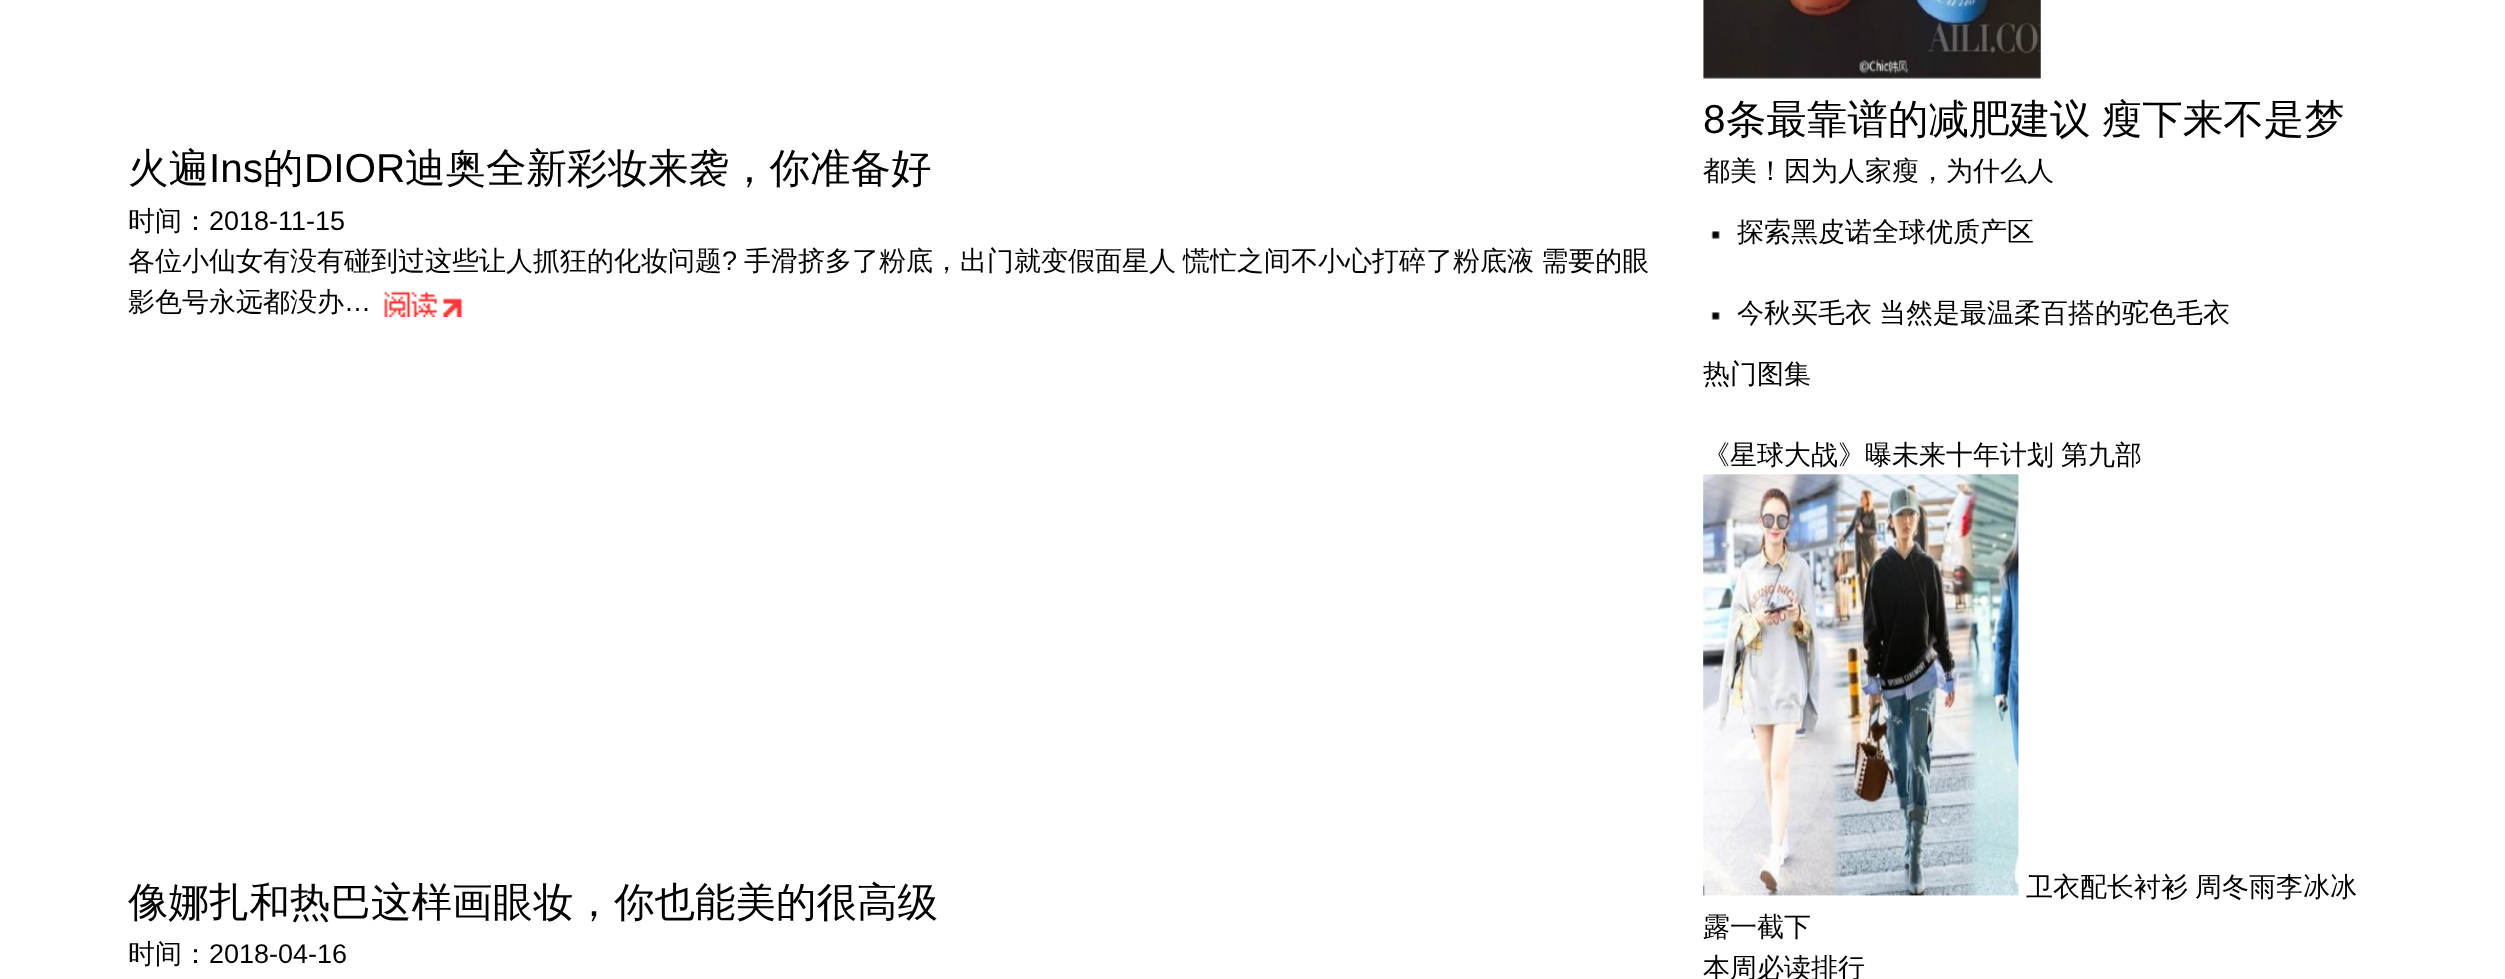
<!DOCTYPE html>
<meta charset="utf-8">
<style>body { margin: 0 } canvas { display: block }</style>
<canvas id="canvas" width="2505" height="979"></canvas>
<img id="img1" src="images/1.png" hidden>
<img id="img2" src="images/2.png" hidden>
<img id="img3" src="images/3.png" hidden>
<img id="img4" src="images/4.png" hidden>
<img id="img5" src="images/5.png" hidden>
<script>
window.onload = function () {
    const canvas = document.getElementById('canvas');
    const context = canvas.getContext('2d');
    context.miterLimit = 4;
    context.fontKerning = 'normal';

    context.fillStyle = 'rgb(255, 255, 255)';
    context.fillRect(0, 0, 2505, 979);
    context.drawImage(document.getElementById('img1'), 384, 291, 79, 26);
    context.drawImage(document.getElementById('img2'), 1703, 0, 338, 79);
    context.drawImage(document.getElementById('img3'), 1711, 231, 9, 8);
    context.drawImage(document.getElementById('img3'), 1711, 312, 9, 8);
    context.drawImage(document.getElementById('img4'), 1703, 474, 316, 422);
    context.drawImage(document.getElementById('img5'), 1703, 474, 316, 422);
    context.font = '500 40.5px WenQuanYi Zen Hei';
    context.fillStyle = 'rgb(0, 0, 0)';
    context.fillText('火遍', 128, 182);
    context.font = '40.5px Liberation Sans';
    context.fillText('Ins', 209, 182);
    context.font = '500 40.5px WenQuanYi Zen Hei';
    context.fillText('的', 263, 182);
    context.font = '40.5px Liberation Sans';
    context.fillText('DIOR', 304, 182);
    context.font = '500 40.5px WenQuanYi Zen Hei';
    context.fillText('迪奥全新彩妆来袭，你准备好', 405, 182);
    context.font = '500 27px WenQuanYi Zen Hei';
    context.fillText('时间：', 128, 230);
    context.font = '27px Liberation Sans';
    context.fillText('2018-11-15', 209, 230);
    context.font = '500 27px WenQuanYi Zen Hei';
    context.fillText('各位小仙女有没有碰到过这些让人抓狂的化妆问题', 128, 270);
    context.font = '27px Liberation Sans';
    context.fillText('?', 722, 270);
    context.wordSpacing = '-1px';
    context.font = '500 27px WenQuanYi Zen Hei';
    context.fillText('手滑挤多了粉底，出门就变假面星人 慌忙之间不小心打碎了粉底液 需要的眼', 744, 270);
    context.wordSpacing = '0px';
    context.fillText('影色号永远都没办', 128, 311);
    context.font = '27px Liberation Sans';
    context.fillText('…', 344, 311);
    context.font = '500 40.5px WenQuanYi Zen Hei';
    context.fillText('像娜扎和热巴这样画眼妆，你也能美的很高级', 128, 916);
    context.font = '500 27px WenQuanYi Zen Hei';
    context.fillText('时间：', 128, 963);
    context.font = '27px Liberation Sans';
    context.fillText('2018-04-16', 209, 963);
    context.font = '40.5px Liberation Sans';
    context.fillText('8', 1703, 133);
    context.wordSpacing = '-1px';
    context.font = '500 40.5px WenQuanYi Zen Hei';
    context.fillText('条最靠谱的减肥建议 瘦下来不是梦', 1726, 133);
    context.wordSpacing = '0px';
    context.font = '500 27px WenQuanYi Zen Hei';
    context.fillText('都美！因为人家瘦，为什么人', 1703, 180);
    context.fillText('探索黑皮诺全球优质产区', 1737, 241);
    context.wordSpacing = '-1px';
    context.fillText('今秋买毛衣 当然是最温柔百搭的驼色毛衣', 1737, 322);
    context.wordSpacing = '0px';
    context.fillText('热门图集', 1703, 383);
    context.wordSpacing = '-1px';
    context.fillText('《星球大战》曝未来十年计划 第九部', 1703, 464);
    context.fillText('卫衣配长衬衫 周冬雨李冰冰', 2026, 896);
    context.wordSpacing = '0px';
    context.fillText('露一截下', 1703, 936);
    context.fillText('本周必读排行', 1703, 977);
};
</script>
